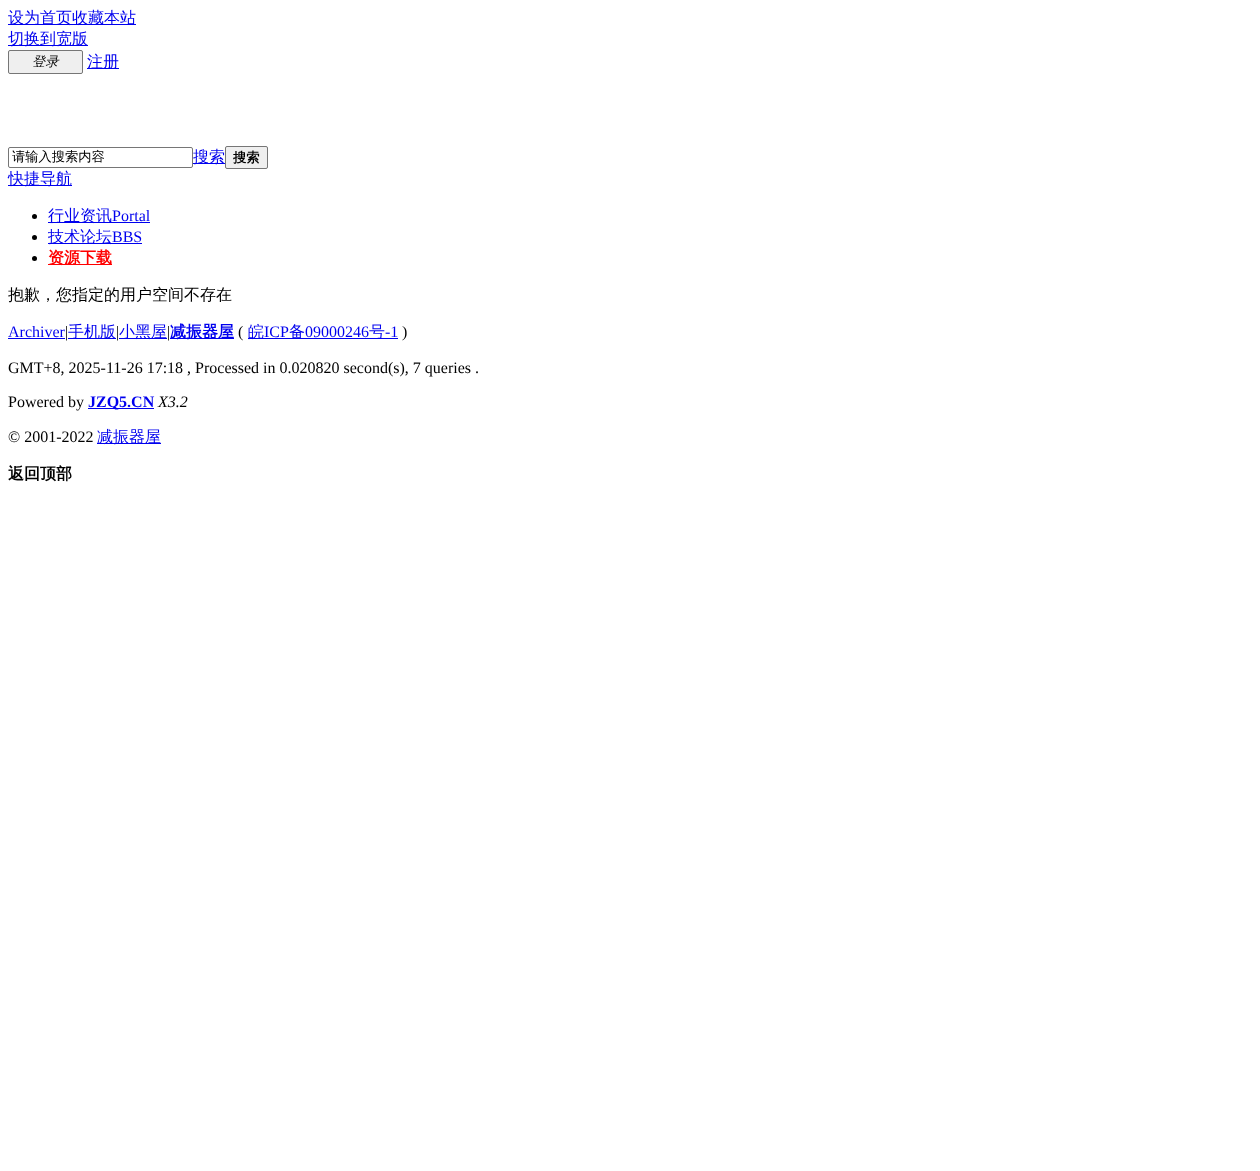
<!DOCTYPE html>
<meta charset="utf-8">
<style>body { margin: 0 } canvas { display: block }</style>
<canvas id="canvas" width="1260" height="1171"></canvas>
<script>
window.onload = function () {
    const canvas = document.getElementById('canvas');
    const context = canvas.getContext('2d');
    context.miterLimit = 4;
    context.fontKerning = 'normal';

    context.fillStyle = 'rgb(255, 255, 255)';
    context.fillRect(0, 0, 1260, 1171);
    context.fillStyle = 'rgb(0, 0, 238)';
    context.fillRect(8, 24, 128, 1);
    context.fillRect(8, 45, 80, 1);
    context.fillStyle = 'rgb(239, 239, 239)';
    context.beginPath();
    context.roundRect(8.5, 50.5, 74, 23, 1.5);
    context.fill();
    context.strokeStyle = 'rgb(118, 118, 118)';
    context.stroke();
    context.fillStyle = 'rgb(0, 0, 238)';
    context.fillRect(87, 68, 32, 1);
    context.beginPath();
    context.roundRect(8.5, 147.5, 184, 20, 1.5);
    context.stroke();
    context.fillRect(193, 163, 32, 1);
    context.fillStyle = 'rgb(239, 239, 239)';
    context.beginPath();
    context.roundRect(225.5, 146.5, 42, 22, 1.5);
    context.fill();
    context.stroke();
    context.fillStyle = 'rgb(0, 0, 238)';
    context.fillRect(8, 185, 64, 1);
    context.fillStyle = 'rgb(0, 0, 0)';
    context.beginPath();
    context.arc(34.5, 216.5, 2.5, 0, 2 * Math.PI);
    context.fill();
    context.fillStyle = 'rgb(0, 0, 238)';
    context.fillRect(48, 222, 102, 1);
    context.fillStyle = 'rgb(0, 0, 0)';
    context.beginPath();
    context.arc(34.5, 237.5, 2.5, 0, 2 * Math.PI);
    context.fill();
    context.fillStyle = 'rgb(0, 0, 238)';
    context.fillRect(48, 243, 94, 1);
    context.fillStyle = 'rgb(0, 0, 0)';
    context.beginPath();
    context.arc(34.5, 258.5, 2.5, 0, 2 * Math.PI);
    context.fill();
    context.fillStyle = 'rgb(255, 0, 0)';
    context.fillRect(48, 264, 64, 1);
    context.fillStyle = 'rgb(0, 0, 238)';
    context.fillRect(8, 338, 57, 1);
    context.fillRect(68, 338, 48, 1);
    context.fillRect(119, 338, 48, 1);
    context.fillRect(170, 338, 64, 1);
    context.fillRect(248, 338, 150, 1);
    context.fillRect(88, 408, 66, 1);
    context.fillRect(97, 443, 64, 1);
    context.font = '500 16px WenQuanYi Zen Hei';
    context.fillText('设为首页收藏本站', 8, 23);
    context.fillText('切换到宽版', 8, 44);
    context.font = 'italic 500 13.25px WenQuanYi Zen Hei';
    context.fillStyle = 'rgb(0, 0, 0)';
    context.fillText('登录', 32, 66);
    context.font = '500 16px WenQuanYi Zen Hei';
    context.fillStyle = 'rgb(0, 0, 238)';
    context.fillText('注册', 87, 67);
    context.font = '500 13.25px WenQuanYi Zen Hei';
    context.fillStyle = 'rgb(0, 0, 0)';
    context.fillText('请输入搜索内容', 12, 161);
    context.font = '500 16px WenQuanYi Zen Hei';
    context.fillStyle = 'rgb(0, 0, 238)';
    context.fillText('搜索', 193, 162);
    context.font = 'bold 13.25px WenQuanYi Zen Hei';
    context.fillStyle = 'rgb(0, 0, 0)';
    context.fillText('搜索', 233, 162);
    context.font = '500 16px WenQuanYi Zen Hei';
    context.fillStyle = 'rgb(0, 0, 238)';
    context.fillText('快捷导航', 8, 184);
    context.fillText('行业资讯', 48, 221);
    context.font = '16px Liberation Serif';
    context.fillText('Portal', 112, 221);
    context.font = '500 16px WenQuanYi Zen Hei';
    context.fillText('技术论坛', 48, 242);
    context.font = '16px Liberation Serif';
    context.fillText('BBS', 112, 242);
    context.font = 'bold 16px WenQuanYi Zen Hei';
    context.fillStyle = 'rgb(255, 0, 0)';
    context.fillText('资源下载', 48, 263);
    context.font = '500 16px WenQuanYi Zen Hei';
    context.fillStyle = 'rgb(0, 0, 0)';
    context.fillText('抱歉，您指定的用户空间不存在', 8, 300);
    context.font = '16px Liberation Serif';
    context.fillStyle = 'rgb(0, 0, 238)';
    context.fillText('Archiver', 8, 337);
    context.fillStyle = 'rgb(0, 0, 0)';
    context.fillText('|', 65, 337);
    context.font = '500 16px WenQuanYi Zen Hei';
    context.fillStyle = 'rgb(0, 0, 238)';
    context.fillText('手机版', 68, 337);
    context.font = '16px Liberation Serif';
    context.fillStyle = 'rgb(0, 0, 0)';
    context.fillText('|', 116, 337);
    context.font = '500 16px WenQuanYi Zen Hei';
    context.fillStyle = 'rgb(0, 0, 238)';
    context.fillText('小黑屋', 119, 337);
    context.font = '16px Liberation Serif';
    context.fillStyle = 'rgb(0, 0, 0)';
    context.fillText('|', 167, 337);
    context.font = 'bold 16px WenQuanYi Zen Hei';
    context.fillStyle = 'rgb(0, 0, 238)';
    context.fillText('减振器屋', 170, 337);
    context.font = '16px Liberation Serif';
    context.fillStyle = 'rgb(0, 0, 0)';
    context.fillText('(', 238, 337);
    context.font = '500 16px WenQuanYi Zen Hei';
    context.fillStyle = 'rgb(0, 0, 238)';
    context.fillText('皖', 248, 337);
    context.font = '16px Liberation Serif';
    context.fillText('ICP', 264, 337);
    context.font = '500 16px WenQuanYi Zen Hei';
    context.fillText('备', 289, 337);
    context.font = '16px Liberation Serif';
    context.fillText('09000246', 305, 337);
    context.font = '500 16px WenQuanYi Zen Hei';
    context.fillText('号', 369, 337);
    context.font = '16px Liberation Serif';
    context.fillText('-1', 385, 337);
    context.fillStyle = 'rgb(0, 0, 0)';
    context.fillText(')', 402, 337);
    context.fillText('GMT+8, 2025-11-26 17:18 , Processed in 0.020820 second(s), 7 queries .', 8, 373);
    context.fillText('Powered by', 8, 407);
    context.font = 'bold 16px Liberation Serif';
    context.fillStyle = 'rgb(0, 0, 238)';
    context.fillText('JZQ5.CN', 88, 407);
    context.font = 'italic 16px Liberation Serif';
    context.fillStyle = 'rgb(0, 0, 0)';
    context.fillText('X3.2', 158, 407);
    context.font = '16px Liberation Serif';
    context.fillText('© 2001-2022', 8, 442);
    context.font = '500 16px WenQuanYi Zen Hei';
    context.fillStyle = 'rgb(0, 0, 238)';
    context.fillText('减振器屋', 97, 442);
    context.font = 'bold 16px WenQuanYi Zen Hei';
    context.fillStyle = 'rgb(0, 0, 0)';
    context.fillText('返回顶部', 8, 479);
};
</script>
